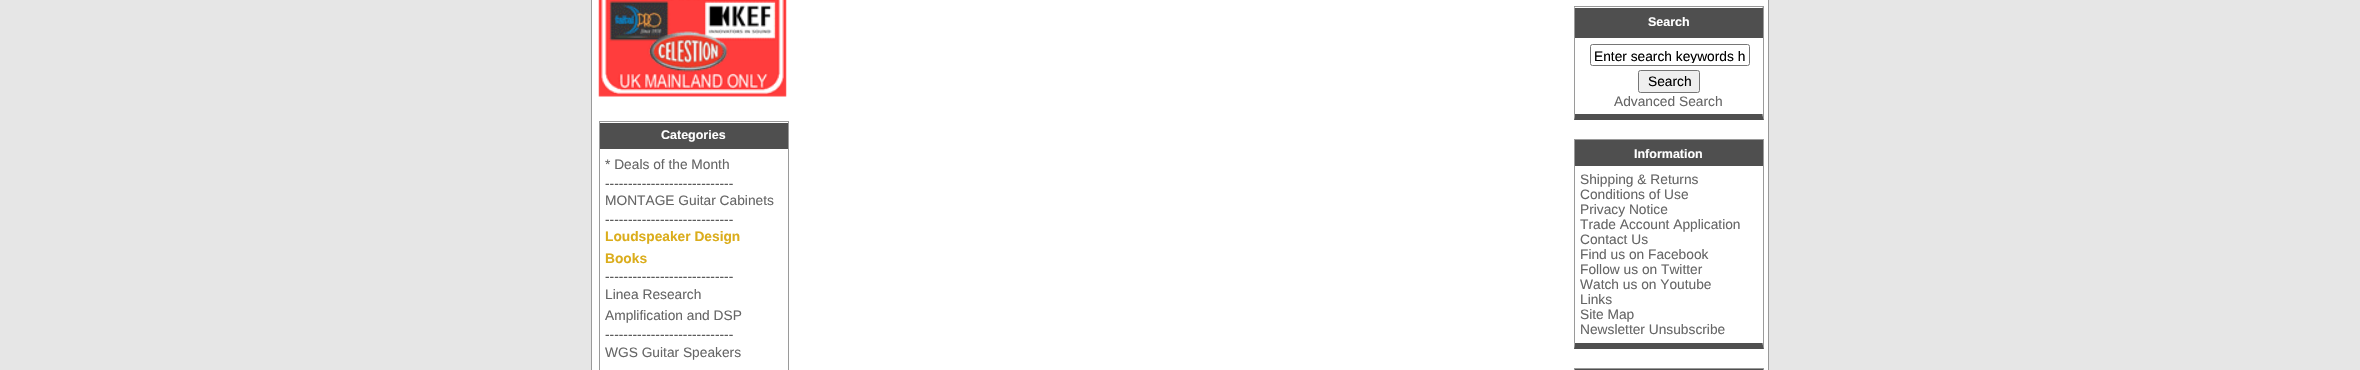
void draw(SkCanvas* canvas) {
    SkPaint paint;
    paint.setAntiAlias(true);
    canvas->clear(0xFFE6E6E6);
    paint.setColor(0xFFFFFFFF);
    canvas->drawRect(SkRect::MakeXYWH(591.5f, -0.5f, 1177, 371), paint);
    paint.setStyle(SkPaint::kStroke_Style);
    paint.setStrokeWidth(1);
    paint.setColor(0xFF9A9A9A);
    canvas->drawRect(SkRect::MakeXYWH(591.5f, -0.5f, 1177, 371), paint);
    canvas->drawImageRect(SkImages::DeferredFromEncodedData(SkData::MakeFromFileName("img1.png")), SkRect::MakeXYWH(598, 0, 189, 97), SkSamplingOptions());
    paint.setStyle(SkPaint::kFill_Style);
    canvas->drawRect(SkRect::MakeXYWH(599, 121, 190, 1), paint);
    canvas->drawPath(SkPathBuilder().moveTo(789, 121).lineTo(789, 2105).lineTo(788, 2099).lineTo(788, 122).close().detach(), paint);
    canvas->drawPath(SkPathBuilder().moveTo(599, 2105).lineTo(599, 121).lineTo(600, 122).lineTo(600, 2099).close().detach(), paint);
    paint.setColor(0xFF4F4F4F);
    canvas->drawRect(SkRect::MakeXYWH(600, 123, 188, 26), paint);
    SkFont font1(fontMgr->matchFamilyStyle("Liberation Sans", SkFontStyle::Bold()), 12.5f);
    font1.setSubpixel(true);
    paint.setColor(0xFFFFFFFF);
    canvas->drawString("Categories", 661, 139, font1, paint);
    SkFont font2(fontMgr->matchFamilyStyle("Liberation Sans", SkFontStyle::Normal()), 13.75f);
    font2.setSubpixel(true);
    paint.setColor(0xFF666666);
    canvas->drawString("* Deals of the Month", 605, 169, font2, paint);
    paint.setColor(0xFF4F4F4F);
    canvas->drawString("----------------------------", 605, 188, font2, paint);
    paint.setColor(0xFF666666);
    canvas->drawString("MONTAGE Guitar Cabinets", 605, 205, font2, paint);
    paint.setColor(0xFF4F4F4F);
    canvas->drawString("----------------------------", 605, 224, font2, paint);
    SkFont font3(fontMgr->matchFamilyStyle("Liberation Sans", SkFontStyle::Bold()), 13.75f);
    font3.setSubpixel(true);
    paint.setColor(0xFFDBAD1C);
    canvas->drawString("Loudspeaker Design", 605, 241, font3, paint);
    canvas->drawString("Books", 605, 263, font3, paint);
    paint.setColor(0xFF4F4F4F);
    canvas->drawString("----------------------------", 605, 281, font2, paint);
    paint.setColor(0xFF666666);
    canvas->drawString("Linea Research", 605, 299, font2, paint);
    canvas->drawString("Amplification and DSP", 605, 320, font2, paint);
    paint.setColor(0xFF4F4F4F);
    canvas->drawString("----------------------------", 605, 339, font2, paint);
    paint.setColor(0xFF666666);
    canvas->drawString("WGS Guitar Speakers", 605, 357, font2, paint);
    paint.setColor(0xFF9A9A9A);
    canvas->drawRect(SkRect::MakeXYWH(1574, 6, 190, 1), paint);
    canvas->drawPath(SkPathBuilder().moveTo(1764, 6).lineTo(1764, 120).lineTo(1762, 114).lineTo(1762, 8).close().detach(), paint);
    paint.setColor(0xFF4F4F4F);
    canvas->drawPath(SkPathBuilder().moveTo(1764, 120).lineTo(1574, 120).lineTo(1575, 114).lineTo(1762, 114).close().detach(), paint);
    paint.setColor(0xFF9A9A9A);
    canvas->drawPath(SkPathBuilder().moveTo(1574, 120).lineTo(1574, 6).lineTo(1575, 8).lineTo(1575, 114).close().detach(), paint);
    paint.setColor(0xFF4F4F4F);
    canvas->drawRect(SkRect::MakeXYWH(1575, 8, 188, 30), paint);
    paint.setColor(0xFFFFFFFF);
    canvas->drawString("Search", 1648, 26, font1, paint);
    canvas->drawRect(SkRect::MakeXYWH(1762, 38, 1, 76), paint);
    paint.setStyle(SkPaint::kStroke_Style);
    paint.setColor(0xFF767676);
    canvas->drawRoundRect(SkRect::MakeXYWH(1590.5f, 44.5f, 159, 21), 2, 2, paint);
    canvas->save();
    canvas->clipRect(SkRect::MakeXYWH(1595, 48, 150, 15));
    paint.setStyle(SkPaint::kFill_Style);
    paint.setColor(0xFF000000);
    canvas->drawString("Enter search keywords h", 1594, 61, font2, paint);
    canvas->restore();
    paint.setColor(0xFFEFEFEF);
    canvas->drawRoundRect(SkRect::MakeXYWH(1638.5f, 70.5f, 61, 22), 2, 2, paint);
    paint.setStyle(SkPaint::kStroke_Style);
    paint.setColor(0xFF767676);
    canvas->drawRoundRect(SkRect::MakeXYWH(1638.5f, 70.5f, 61, 22), 2, 2, paint);
    paint.setStyle(SkPaint::kFill_Style);
    paint.setColor(0xFF000000);
    canvas->drawString("Search", 1648, 86, font2, paint);
    paint.setColor(0xFF666666);
    canvas->drawString("Advanced Search", 1614, 106, font2, paint);
    paint.setColor(0xFF9A9A9A);
    canvas->drawRect(SkRect::MakeXYWH(1574, 139, 190, 1), paint);
    canvas->drawPath(SkPathBuilder().moveTo(1764, 139).lineTo(1764, 349).lineTo(1762, 342).lineTo(1762, 140).close().detach(), paint);
    paint.setColor(0xFF4F4F4F);
    canvas->drawPath(SkPathBuilder().moveTo(1764, 349).lineTo(1574, 349).lineTo(1575, 342).lineTo(1762, 342).close().detach(), paint);
    paint.setColor(0xFF9A9A9A);
    canvas->drawPath(SkPathBuilder().moveTo(1574, 349).lineTo(1574, 139).lineTo(1575, 140).lineTo(1575, 342).close().detach(), paint);
    paint.setColor(0xFF4F4F4F);
    canvas->drawRect(SkRect::MakeXYWH(1575, 140, 188, 26), paint);
    paint.setColor(0xFFFFFFFF);
    canvas->drawString("Information", 1634, 158, font1, paint);
    canvas->drawRect(SkRect::MakeXYWH(1575, 166, 188, 177), paint);
    paint.setColor(0xFF666666);
    canvas->drawString("Shipping & Returns", 1580, 184, font2, paint);
    canvas->drawString("Conditions of Use", 1580, 199, font2, paint);
    canvas->drawString("Privacy Notice", 1580, 214, font2, paint);
    canvas->drawString("Trade Account Application", 1580, 229, font2, paint);
    canvas->drawString("Contact Us", 1580, 244, font2, paint);
    canvas->drawString("Find us on Facebook", 1580, 259, font2, paint);
    canvas->drawString("Follow us on Twitter", 1580, 274, font2, paint);
    canvas->drawString("Watch us on Youtube", 1580, 289, font2, paint);
    canvas->drawString("Links", 1580, 304, font2, paint);
    canvas->drawString("Site Map", 1580, 319, font2, paint);
    canvas->drawString("Newsletter Unsubscribe", 1580, 334, font2, paint);
    paint.setColor(0xFF9A9A9A);
    canvas->drawRect(SkRect::MakeXYWH(1574, 368, 190, 1), paint);
    canvas->drawPath(SkPathBuilder().moveTo(1764, 368).lineTo(1764, 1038).lineTo(1762, 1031).lineTo(1762, 369).close().detach(), paint);
    canvas->drawPath(SkPathBuilder().moveTo(1574, 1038).lineTo(1574, 368).lineTo(1575, 369).lineTo(1575, 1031).close().detach(), paint);
    paint.setColor(0xFF4F4F4F);
    canvas->drawRect(SkRect::MakeXYWH(1575, 369, 188, 1), paint);
}
